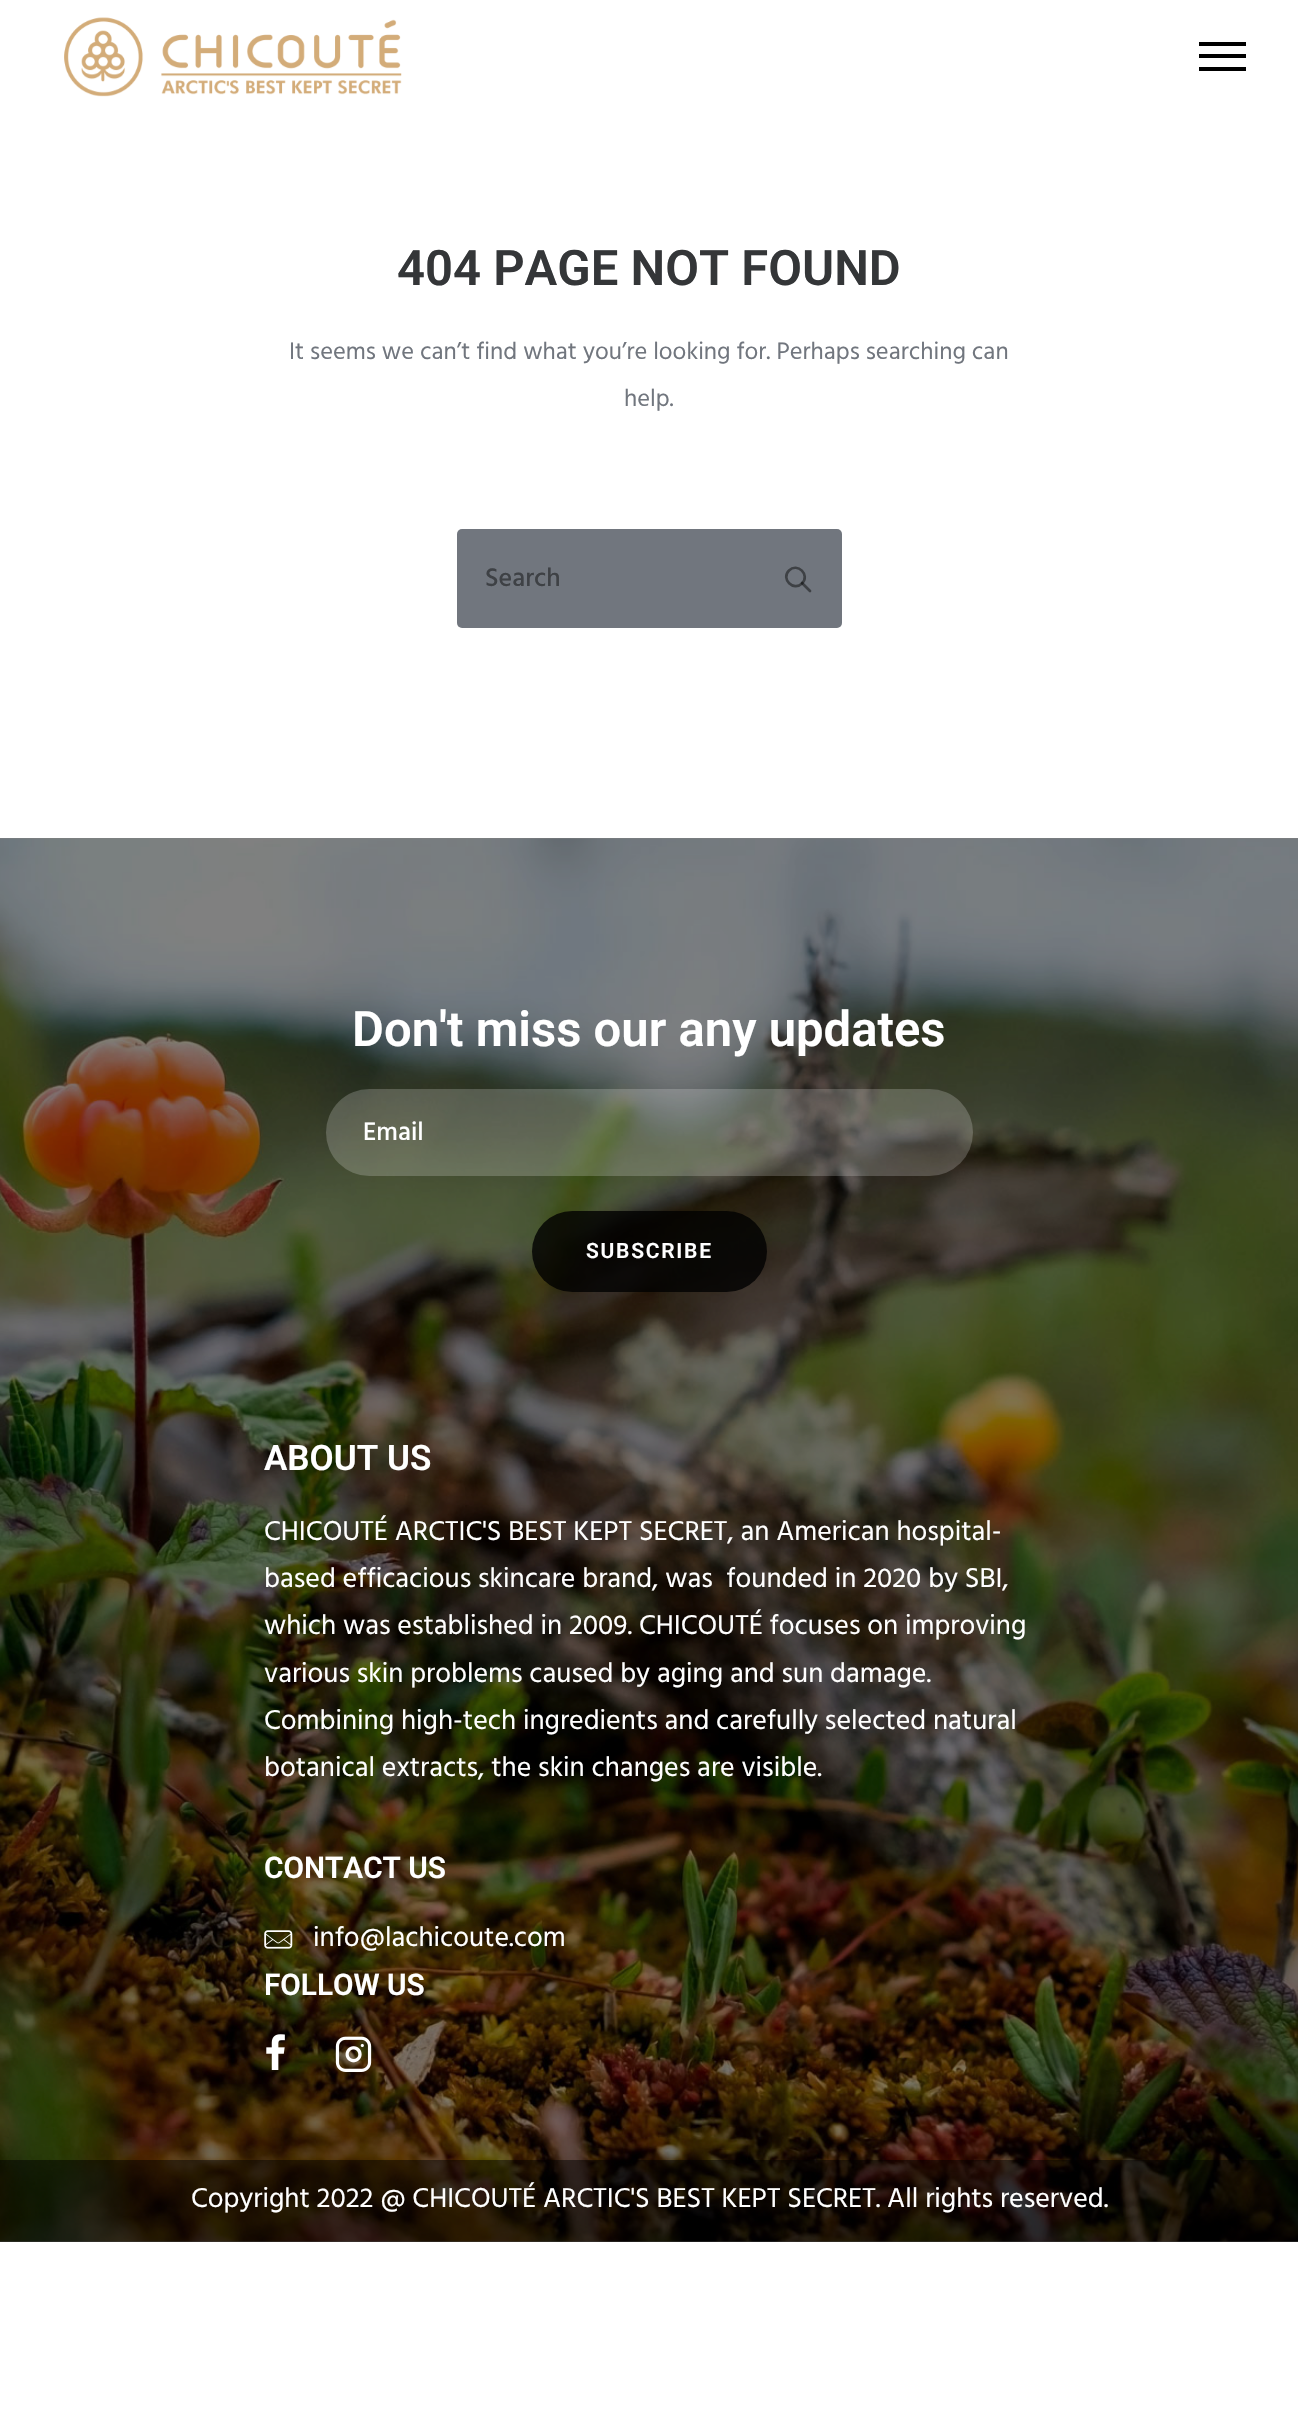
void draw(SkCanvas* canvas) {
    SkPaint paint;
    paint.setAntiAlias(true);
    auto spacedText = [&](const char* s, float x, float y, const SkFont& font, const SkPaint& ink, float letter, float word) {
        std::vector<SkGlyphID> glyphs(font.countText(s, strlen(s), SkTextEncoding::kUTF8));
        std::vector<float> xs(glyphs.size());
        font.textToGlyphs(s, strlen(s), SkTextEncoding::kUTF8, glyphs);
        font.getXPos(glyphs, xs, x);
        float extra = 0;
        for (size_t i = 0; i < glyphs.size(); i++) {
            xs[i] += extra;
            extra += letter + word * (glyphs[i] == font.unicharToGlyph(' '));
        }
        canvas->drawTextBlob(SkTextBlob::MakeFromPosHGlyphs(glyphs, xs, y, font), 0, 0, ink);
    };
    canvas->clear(0xFFFFFFFF);
    paint.setColor(0xFF808080);
    canvas->drawRect(SkRect::MakeXYWH(0, 838, 1298, 1404), paint);
    canvas->drawImageRect(SkImages::DeferredFromEncodedData(SkData::MakeFromFileName("img1.png")), SkRect::MakeXYWH(64, 17, 338, 80), SkSamplingOptions());
    paint.setColor(0xFF000000);
    canvas->drawRect(SkRect::MakeXYWH(1199, 42, 47, 4), paint);
    canvas->drawRect(SkRect::MakeXYWH(1199, 54, 47, 4), paint);
    canvas->drawRect(SkRect::MakeXYWH(1199, 67, 47, 4), paint);
    SkFont font1(fontMgr->matchFamilyStyle("Roboto", SkFontStyle(600, SkFontStyle::kNormal_Width, SkFontStyle::kUpright_Slant)), 49);
    font1.setSubpixel(true);
    paint.setColor(0xFF343638);
    canvas->drawString("404 PAGE NOT FOUND", 397, 285, font1, paint);
    SkFont font2(fontMgr->matchFamilyStyle("Hind", SkFontStyle::Normal()), 24.5f);
    font2.setSubpixel(true);
    paint.setColor(0xFF71767E);
    canvas->drawString("It seems we can’t find what you’re looking for. Perhaps searching can", 289, 359, font2, paint);
    canvas->drawString("help.", 624, 406, font2, paint);
    canvas->drawRoundRect(SkRect::MakeXYWH(457, 529, 385, 99), 5, 5, paint);
    SkFont font3(fontMgr->matchFamilyStyle("Hind", SkFontStyle(500, SkFontStyle::kNormal_Width, SkFontStyle::kUpright_Slant)), 26);
    font3.setSubpixel(true);
    paint.setColor(0xFF3E4145);
    canvas->drawString("Search", 485, 586, font3, paint);
    paint.setStyle(SkPaint::kStroke_Style);
    paint.setStrokeWidth(2.7f);
    canvas->drawPath(SkPathBuilder().moveTo(789, 570.5f).cubicTo(797.5f, 562, 810.5f, 575, 802, 583.5f).cubicTo(793.5f, 591.5f, 780.5f, 579, 789, 570.5f).close().detach(), paint);
    paint.setStrokeCap(SkPaint::kRound_Cap);
    paint.setColor(0x73000000);
    canvas->drawPath(SkPathBuilder().moveTo(802, 583).lineTo(810, 591).detach(), paint);
    canvas->drawImageRect(SkImages::DeferredFromEncodedData(SkData::MakeFromFileName("img2.png")), SkRect::MakeXYWH(0, 838, 1298, 1404), SkSamplingOptions());
    paint.setStyle(SkPaint::kFill_Style);
    paint.setColor(0xFFFFFFFF);
    canvas->drawString("Don't miss our any updates", 352, 1046, font1, paint);
    paint.setColor(0x33FFFFFF);
    canvas->drawRoundRect(SkRect::MakeXYWH(326, 1089, 647, 87), 43.5f, 43.5f, paint);
    paint.setColor(0xFFFFFFFF);
    canvas->drawString("Email", 363, 1140, font3, paint);
    paint.setColor(0xCC000000);
    canvas->drawRoundRect(SkRect::MakeXYWH(532, 1211, 235, 81), 40.5f, 40.5f, paint);
    SkFont font4(fontMgr->matchFamilyStyle("Roboto", SkFontStyle(600, SkFontStyle::kNormal_Width, SkFontStyle::kUpright_Slant)), 21);
    font4.setSubpixel(true);
    paint.setColor(0xFFFFFFFF);
    spacedText("SUBSCRIBE", 586, 1258, font4, paint, 1.75f, 0);
    SkFont font5(fontMgr->matchFamilyStyle("Roboto", SkFontStyle(600, SkFontStyle::kNormal_Width, SkFontStyle::kUpright_Slant)), 35);
    font5.setSubpixel(true);
    canvas->drawString("ABOUT US", 264, 1470, font5, paint);
    SkFont font6(fontMgr->matchFamilyStyle("Hind", SkFontStyle::Normal()), 28);
    font6.setSubpixel(true);
    canvas->drawString("CHICOUTÉ ARCTIC'S BEST KEPT SECRET, an American hospital-", 264, 1540, font6, paint);
    canvas->drawString("based efficacious skincare brand, was  founded in 2020 by SBI,", 264, 1587, font6, paint);
    canvas->drawString("which was established in 2009. CHICOUTÉ focuses on improving", 264, 1634, font6, paint);
    canvas->drawString("various skin problems caused by aging and sun damage.", 264, 1682, font6, paint);
    canvas->drawString("Combining high-tech ingredients and carefully selected natural", 264, 1729, font6, paint);
    canvas->drawString("botanical extracts, the skin changes are visible.", 264, 1776, font6, paint);
    SkFont font7(fontMgr->matchFamilyStyle("Roboto", SkFontStyle(600, SkFontStyle::kNormal_Width, SkFontStyle::kUpright_Slant)), 29.75f);
    font7.setSubpixel(true);
    canvas->drawString("CONTACT US", 264, 1878, font7, paint);
    canvas->drawImageRect(SkImages::DeferredFromEncodedData(SkData::MakeFromFileName("img3.png")), SkRect::MakeXYWH(264, 1930, 29, 19), SkSamplingOptions());
    canvas->drawString("info@lachicoute.com", 313, 1946, font6, paint);
    canvas->drawString("FOLLOW US", 264, 1995, font7, paint);
    canvas->drawImageRect(SkImages::DeferredFromEncodedData(SkData::MakeFromFileName("img4.png")), SkRect::MakeXYWH(266, 2034, 19, 36), SkSamplingOptions());
    canvas->drawImageRect(SkImages::DeferredFromEncodedData(SkData::MakeFromFileName("img5.png")), SkRect::MakeXYWH(335, 2036, 37, 36), SkSamplingOptions());
    paint.setColor(0x80000000);
    canvas->drawRect(SkRect::MakeXYWH(0, 2160, 1298, 82), paint);
    paint.setColor(0xFFFFFFFF);
    canvas->drawString("Copyright 2022 @ CHICOUTÉ ARCTIC'S BEST KEPT SECRET. All rights reserved.", 191, 2207, font6, paint);
}
